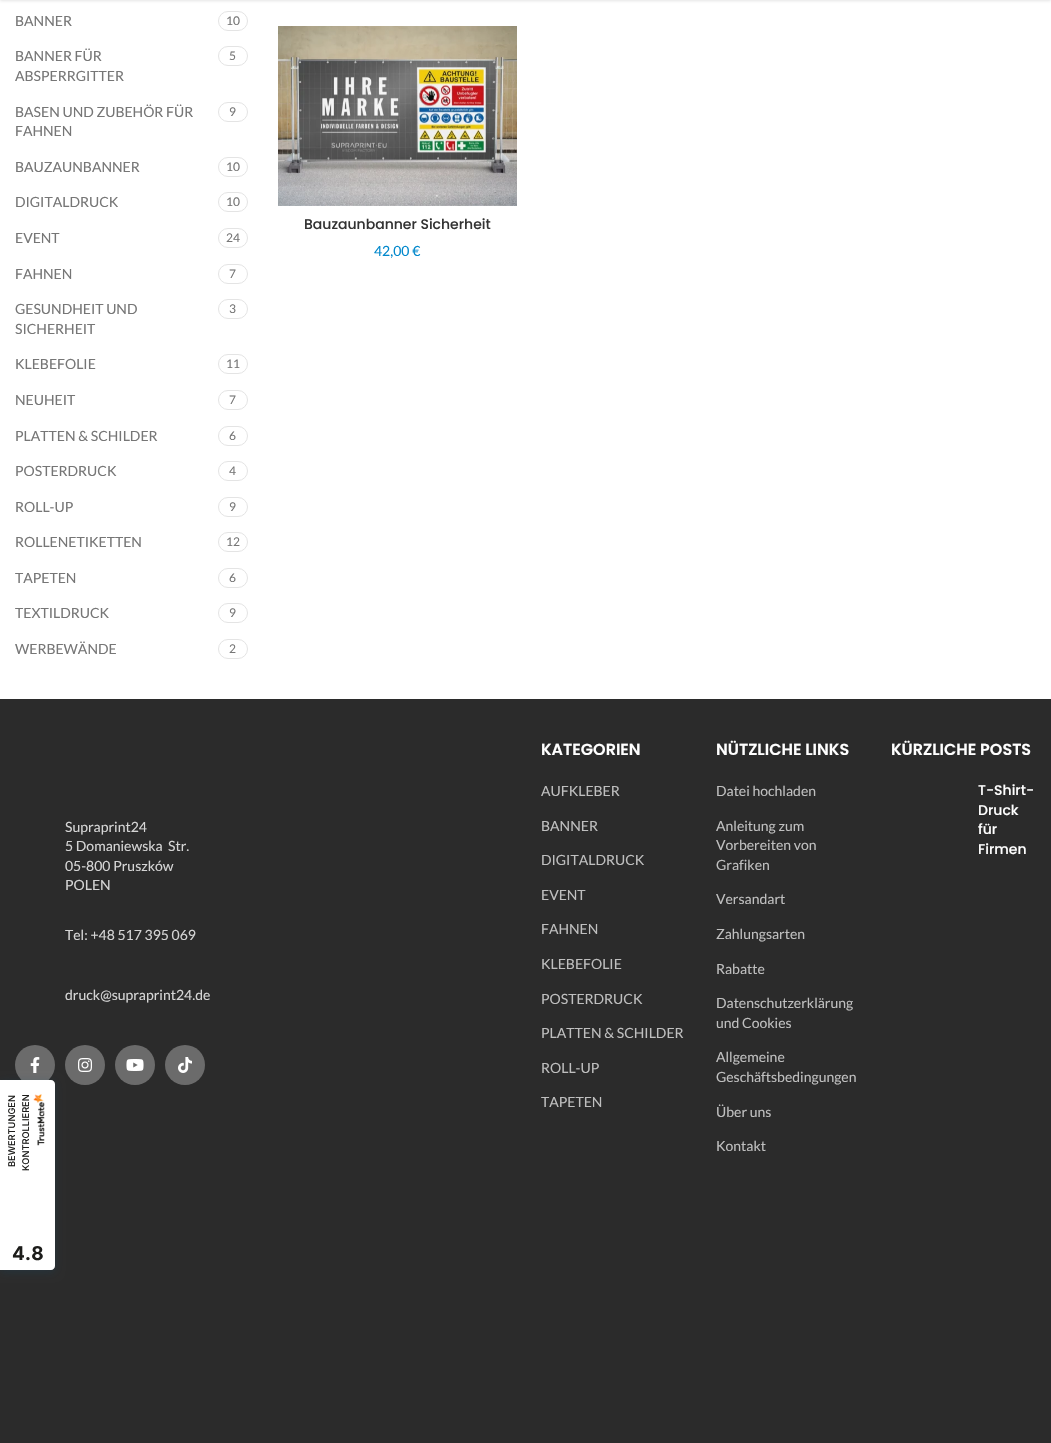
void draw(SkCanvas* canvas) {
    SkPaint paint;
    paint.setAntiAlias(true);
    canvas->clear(0xFFFFFFFF);
    paint.setColor(0x1A000000);
    paint.setMaskFilter(SkMaskFilter::MakeBlur(kNormal_SkBlurStyle, 1.5f));
    canvas->drawRect(SkRect::MakeXYWH(0, -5, 1051, 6), paint);
    paint.setMaskFilter(nullptr);
    SkFont font1(fontMgr->matchFamilyStyle("Lato", SkFontStyle::Normal()), 14);
    font1.setSubpixel(true);
    paint.setColor(0xFF767676);
    canvas->drawString("BANNER", 15, 26, font1, paint);
    paint.setStyle(SkPaint::kStroke_Style);
    paint.setStrokeWidth(1);
    paint.setColor(0xFFE4E4E4);
    canvas->drawRoundRect(SkRect::MakeXYWH(218.5f, 11.5f, 29, 19), 9.5f, 9.5f, paint);
    SkFont font2(fontMgr->matchFamilyStyle("Lato", SkFontStyle::Normal()), 12);
    font2.setSubpixel(true);
    paint.setStyle(SkPaint::kFill_Style);
    paint.setColor(0xFF767676);
    canvas->drawString("10", 226, 25, font2, paint);
    canvas->drawString("BANNER FÜR", 15, 61, font1, paint);
    canvas->drawString("ABSPERRGITTER", 15, 81, font1, paint);
    paint.setStyle(SkPaint::kStroke_Style);
    paint.setColor(0xFFE4E4E4);
    canvas->drawRoundRect(SkRect::MakeXYWH(218.5f, 46.5f, 29, 19), 9.5f, 9.5f, paint);
    paint.setStyle(SkPaint::kFill_Style);
    paint.setColor(0xFF767676);
    canvas->drawString("5", 229, 60, font2, paint);
    canvas->drawString("BASEN UND ZUBEHÖR FÜR", 15, 117, font1, paint);
    canvas->drawString("FAHNEN", 15, 136, font1, paint);
    paint.setStyle(SkPaint::kStroke_Style);
    paint.setColor(0xFFE4E4E4);
    canvas->drawRoundRect(SkRect::MakeXYWH(218.5f, 102.5f, 29, 19), 9.5f, 9.5f, paint);
    paint.setStyle(SkPaint::kFill_Style);
    paint.setColor(0xFF767676);
    canvas->drawString("9", 229, 116, font2, paint);
    canvas->drawString("BAUZAUNBANNER", 15, 172, font1, paint);
    paint.setStyle(SkPaint::kStroke_Style);
    paint.setColor(0xFFE4E4E4);
    canvas->drawRoundRect(SkRect::MakeXYWH(218.5f, 157.5f, 29, 19), 9.5f, 9.5f, paint);
    paint.setStyle(SkPaint::kFill_Style);
    paint.setColor(0xFF767676);
    canvas->drawString("10", 226, 171, font2, paint);
    canvas->drawString("DIGITALDRUCK", 15, 207, font1, paint);
    paint.setStyle(SkPaint::kStroke_Style);
    paint.setColor(0xFFE4E4E4);
    canvas->drawRoundRect(SkRect::MakeXYWH(218.5f, 192.5f, 29, 19), 9.5f, 9.5f, paint);
    paint.setStyle(SkPaint::kFill_Style);
    paint.setColor(0xFF767676);
    canvas->drawString("10", 226, 206, font2, paint);
    canvas->drawString("EVENT", 15, 243, font1, paint);
    paint.setStyle(SkPaint::kStroke_Style);
    paint.setColor(0xFFE4E4E4);
    canvas->drawRoundRect(SkRect::MakeXYWH(218.5f, 228.5f, 29, 19), 9.5f, 9.5f, paint);
    paint.setStyle(SkPaint::kFill_Style);
    paint.setColor(0xFF767676);
    canvas->drawString("24", 226, 242, font2, paint);
    canvas->drawString("FAHNEN", 15, 279, font1, paint);
    paint.setStyle(SkPaint::kStroke_Style);
    paint.setColor(0xFFE4E4E4);
    canvas->drawRoundRect(SkRect::MakeXYWH(218.5f, 264.5f, 29, 19), 9.5f, 9.5f, paint);
    paint.setStyle(SkPaint::kFill_Style);
    paint.setColor(0xFF767676);
    canvas->drawString("7", 229, 278, font2, paint);
    canvas->drawString("GESUNDHEIT UND", 15, 314, font1, paint);
    canvas->drawString("SICHERHEIT", 15, 334, font1, paint);
    paint.setStyle(SkPaint::kStroke_Style);
    paint.setColor(0xFFE4E4E4);
    canvas->drawRoundRect(SkRect::MakeXYWH(218.5f, 299.5f, 29, 19), 9.5f, 9.5f, paint);
    paint.setStyle(SkPaint::kFill_Style);
    paint.setColor(0xFF767676);
    canvas->drawString("3", 229, 313, font2, paint);
    canvas->drawString("KLEBEFOLIE", 15, 369, font1, paint);
    paint.setStyle(SkPaint::kStroke_Style);
    paint.setColor(0xFFE4E4E4);
    canvas->drawRoundRect(SkRect::MakeXYWH(218.5f, 354.5f, 29, 19), 9.5f, 9.5f, paint);
    paint.setStyle(SkPaint::kFill_Style);
    paint.setColor(0xFF767676);
    canvas->drawString("11", 226, 368, font2, paint);
    canvas->drawString("NEUHEIT", 15, 405, font1, paint);
    paint.setStyle(SkPaint::kStroke_Style);
    paint.setColor(0xFFE4E4E4);
    canvas->drawRoundRect(SkRect::MakeXYWH(218.5f, 390.5f, 29, 19), 9.5f, 9.5f, paint);
    paint.setStyle(SkPaint::kFill_Style);
    paint.setColor(0xFF767676);
    canvas->drawString("7", 229, 404, font2, paint);
    canvas->drawString("PLATTEN & SCHILDER", 15, 441, font1, paint);
    paint.setStyle(SkPaint::kStroke_Style);
    paint.setColor(0xFFE4E4E4);
    canvas->drawRoundRect(SkRect::MakeXYWH(218.5f, 426.5f, 29, 19), 9.5f, 9.5f, paint);
    paint.setStyle(SkPaint::kFill_Style);
    paint.setColor(0xFF767676);
    canvas->drawString("6", 229, 440, font2, paint);
    canvas->drawString("POSTERDRUCK", 15, 476, font1, paint);
    paint.setStyle(SkPaint::kStroke_Style);
    paint.setColor(0xFFE4E4E4);
    canvas->drawRoundRect(SkRect::MakeXYWH(218.5f, 461.5f, 29, 19), 9.5f, 9.5f, paint);
    paint.setStyle(SkPaint::kFill_Style);
    paint.setColor(0xFF767676);
    canvas->drawString("4", 229, 475, font2, paint);
    canvas->drawString("ROLL-UP", 15, 512, font1, paint);
    paint.setStyle(SkPaint::kStroke_Style);
    paint.setColor(0xFFE4E4E4);
    canvas->drawRoundRect(SkRect::MakeXYWH(218.5f, 497.5f, 29, 19), 9.5f, 9.5f, paint);
    paint.setStyle(SkPaint::kFill_Style);
    paint.setColor(0xFF767676);
    canvas->drawString("9", 229, 511, font2, paint);
    canvas->drawString("ROLLENETIKETTEN", 15, 547, font1, paint);
    paint.setStyle(SkPaint::kStroke_Style);
    paint.setColor(0xFFE4E4E4);
    canvas->drawRoundRect(SkRect::MakeXYWH(218.5f, 532.5f, 29, 19), 9.5f, 9.5f, paint);
    paint.setStyle(SkPaint::kFill_Style);
    paint.setColor(0xFF767676);
    canvas->drawString("12", 226, 546, font2, paint);
    canvas->drawString("TAPETEN", 15, 583, font1, paint);
    paint.setStyle(SkPaint::kStroke_Style);
    paint.setColor(0xFFE4E4E4);
    canvas->drawRoundRect(SkRect::MakeXYWH(218.5f, 568.5f, 29, 19), 9.5f, 9.5f, paint);
    paint.setStyle(SkPaint::kFill_Style);
    paint.setColor(0xFF767676);
    canvas->drawString("6", 229, 582, font2, paint);
    canvas->drawString("TEXTILDRUCK", 15, 618, font1, paint);
    paint.setStyle(SkPaint::kStroke_Style);
    paint.setColor(0xFFE4E4E4);
    canvas->drawRoundRect(SkRect::MakeXYWH(218.5f, 603.5f, 29, 19), 9.5f, 9.5f, paint);
    paint.setStyle(SkPaint::kFill_Style);
    paint.setColor(0xFF767676);
    canvas->drawString("9", 229, 617, font2, paint);
    canvas->drawString("WERBEWÄNDE", 15, 654, font1, paint);
    paint.setStyle(SkPaint::kStroke_Style);
    paint.setColor(0xFFE4E4E4);
    canvas->drawRoundRect(SkRect::MakeXYWH(218.5f, 639.5f, 29, 19), 9.5f, 9.5f, paint);
    paint.setStyle(SkPaint::kFill_Style);
    paint.setColor(0xFF767676);
    canvas->drawString("2", 229, 653, font2, paint);
    canvas->drawImageRect(SkImages::DeferredFromEncodedData(SkData::MakeFromFileName("img1.png")), SkRect::MakeXYWH(278, 26, 239, 180), SkSamplingOptions());
    SkFont font3(fontMgr->matchFamilyStyle("Poppins", SkFontStyle(500, SkFontStyle::kNormal_Width, SkFontStyle::kUpright_Slant)), 14);
    font3.setSubpixel(true);
    paint.setColor(0xFF333333);
    canvas->drawString("Bauzaunbanner Sicherheit", 304, 229, font3, paint);
    paint.setColor(0xFF0188CC);
    canvas->drawString("42,00 €", 374, 256, font1, paint);
    paint.setColor(0xFF2B2B2B);
    canvas->drawRect(SkRect::MakeXYWH(0, 699, 1051, 744), paint);
    paint.setColor(0xFFD5D5D5);
    canvas->drawString("Supraprint24", 65, 832, font1, paint);
    canvas->drawString("5 Domaniewska  Str.", 65, 851, font1, paint);
    canvas->drawString("05-800 Pruszków", 65, 871, font1, paint);
    canvas->drawString("POLEN", 65, 890, font1, paint);
    canvas->drawString("Tel: +48 517 395 069", 65, 940, font1, paint);
    canvas->drawString("druck@supraprint24.de", 65, 1000, font1, paint);
    paint.setColor(0xFF6B6B6B);
    canvas->drawCircle(35, 1065, 20, paint);
    canvas->drawImageRect(SkImages::DeferredFromEncodedData(SkData::MakeFromFileName("img2.png")), SkRect::MakeXYWH(30, 1057, 10, 16), SkSamplingOptions());
    canvas->drawCircle(85, 1065, 20, paint);
    canvas->drawImageRect(SkImages::DeferredFromEncodedData(SkData::MakeFromFileName("img3.png")), SkRect::MakeXYWH(78, 1058, 14, 14), SkSamplingOptions());
    canvas->drawCircle(135, 1065, 20, paint);
    canvas->drawImageRect(SkImages::DeferredFromEncodedData(SkData::MakeFromFileName("img4.png")), SkRect::MakeXYWH(126, 1059, 18, 12), SkSamplingOptions());
    canvas->drawCircle(185, 1065, 20, paint);
    canvas->drawImageRect(SkImages::DeferredFromEncodedData(SkData::MakeFromFileName("img5.png")), SkRect::MakeXYWH(178, 1057, 14, 16), SkSamplingOptions());
    SkFont font4(fontMgr->matchFamilyStyle("Poppins", SkFontStyle(600, SkFontStyle::kNormal_Width, SkFontStyle::kUpright_Slant)), 16);
    font4.setSubpixel(true);
    paint.setColor(0xFFFFFFFF);
    canvas->drawString("KATEGORIEN", 541, 755, font4, paint);
    paint.setColor(0xFFBFBFBF);
    canvas->drawString("AUFKLEBER", 541, 796, font1, paint);
    canvas->drawString("BANNER", 541, 831, font1, paint);
    canvas->drawString("DIGITALDRUCK", 541, 865, font1, paint);
    canvas->drawString("EVENT", 541, 900, font1, paint);
    canvas->drawString("FAHNEN", 541, 934, font1, paint);
    canvas->drawString("KLEBEFOLIE", 541, 969, font1, paint);
    canvas->drawString("POSTERDRUCK", 541, 1004, font1, paint);
    canvas->drawString("PLATTEN & SCHILDER", 541, 1038, font1, paint);
    canvas->drawString("ROLL-UP", 541, 1073, font1, paint);
    canvas->drawString("TAPETEN", 541, 1107, font1, paint);
    paint.setColor(0xFFFFFFFF);
    canvas->drawString("NÜTZLICHE LINKS", 716, 755, font4, paint);
    paint.setColor(0xFFBFBFBF);
    canvas->drawString("Datei hochladen", 716, 796, font1, paint);
    canvas->drawString("Anleitung zum", 716, 831, font1, paint);
    canvas->drawString("Vorbereiten von", 716, 850, font1, paint);
    canvas->drawString("Grafiken", 716, 870, font1, paint);
    canvas->drawString("Versandart", 716, 904, font1, paint);
    canvas->drawString("Zahlungsarten", 716, 939, font1, paint);
    canvas->drawString("Rabatte", 716, 974, font1, paint);
    canvas->drawString("Datenschutzerklärung", 716, 1008, font1, paint);
    canvas->drawString("und Cookies", 716, 1028, font1, paint);
    canvas->drawString("Allgemeine", 716, 1062, font1, paint);
    canvas->drawString("Geschäftsbedingungen", 716, 1082, font1, paint);
    canvas->drawString("Über uns", 716, 1117, font1, paint);
    canvas->drawString("Kontakt", 716, 1151, font1, paint);
    paint.setColor(0xFFFFFFFF);
    canvas->drawString("KÜRZLICHE POSTS", 891, 755, font4, paint);
    canvas->drawString("T-Shirt-", 978, 795, font3, paint);
    canvas->drawString("Druck", 978, 815, font3, paint);
    canvas->drawString("für", 978, 834, font3, paint);
    canvas->drawString("Firmen", 978, 854, font3, paint);
    paint.setColor(0x330B5680);
    paint.setMaskFilter(SkMaskFilter::MakeBlur(kNormal_SkBlurStyle, 5));
    canvas->drawRoundRect(SkRect::MakeXYWH(0, 1082, 55, 190), 4, 4, paint);
    paint.setMaskFilter(nullptr);
    paint.setColor(0xFFFFFFFF);
    canvas->drawPath(SkPathBuilder().moveTo(0, 1080).lineTo(51, 1080).cubicTo(53, 1080, 55, 1082, 55, 1084).lineTo(55, 1266).cubicTo(55, 1268, 53, 1270, 51, 1270).lineTo(0, 1270).close().detach(), paint);
    SkFont font5(fontMgr->matchFamilyStyle("Inter", SkFontStyle(500, SkFontStyle::kNormal_Width, SkFontStyle::kUpright_Slant)), 9.25f);
    font5.setSubpixel(true);
    paint.setColor(0xFF1D1D1B);
    canvas->save();
    canvas->rotate(-90, 15, 1167);
    canvas->drawString("BEWERTUNGEN", 15, 1167, font5, paint);
    canvas->restore();
    canvas->save();
    canvas->rotate(-90, 29, 1171);
    canvas->drawString("KONTROLLIEREN", 29, 1171, font5, paint);
    canvas->restore();
    canvas->drawImageRect(SkImages::DeferredFromEncodedData(SkData::MakeFromFileName("img6.png")), SkRect::MakeXYWH(33, 1094, 12, 52), SkSamplingOptions());
    SkFont font6(fontMgr->matchFamilyStyle("Inter", SkFontStyle::Bold()), 19);
    font6.setSubpixel(true);
    canvas->drawString("4.8", 12, 1260, font6, paint);
}
